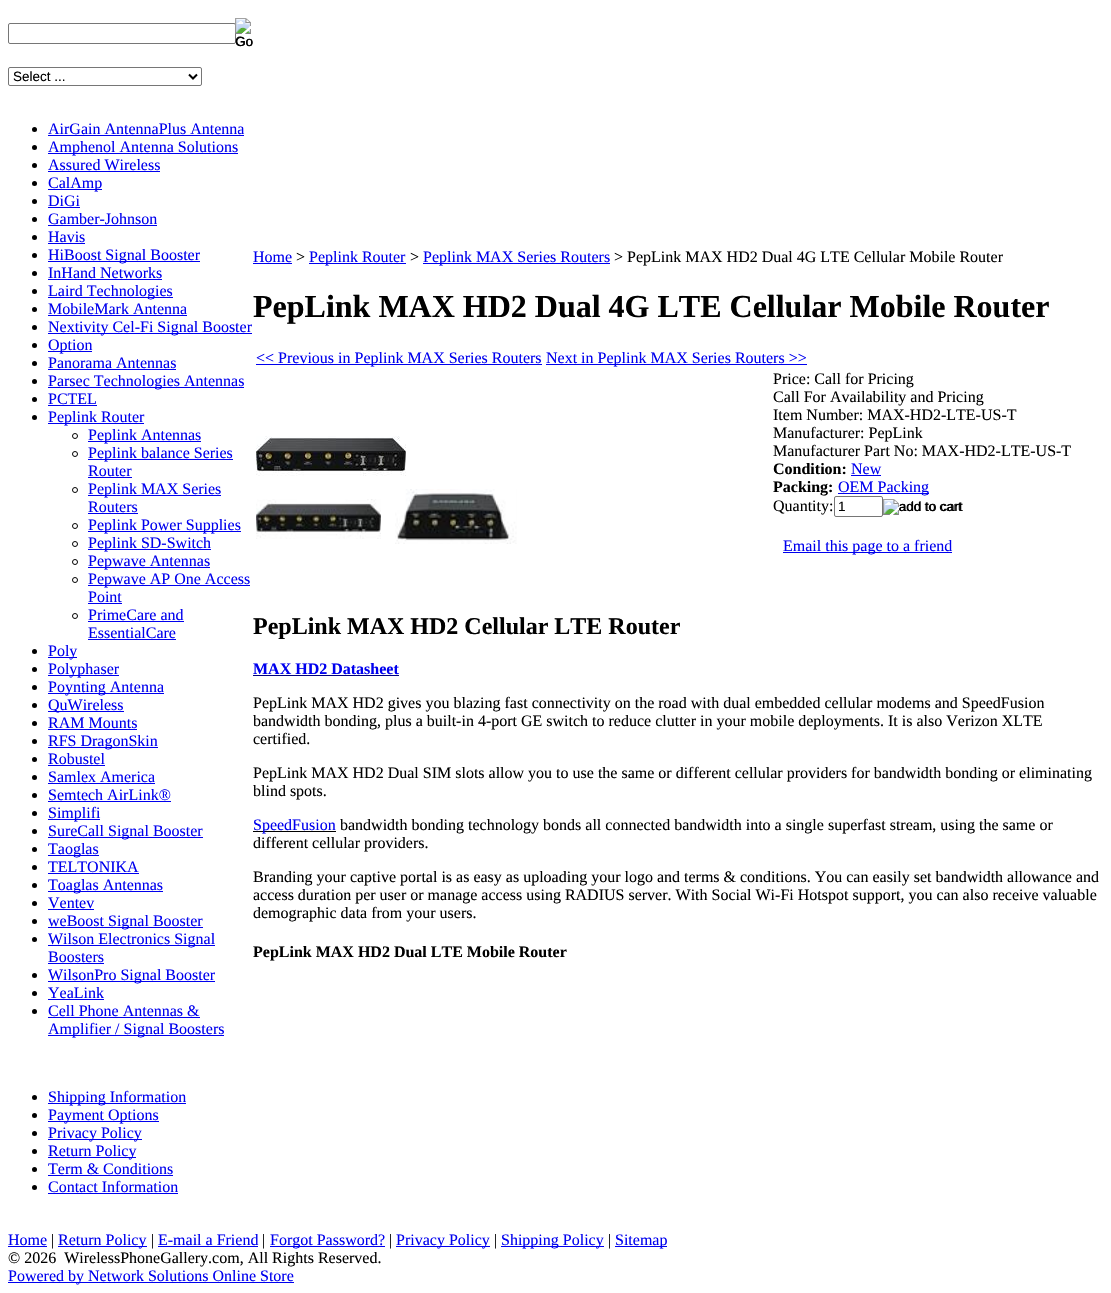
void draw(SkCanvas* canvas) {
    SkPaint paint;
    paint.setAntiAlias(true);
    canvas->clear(0xFFFFFFFF);
    paint.setStyle(SkPaint::kStroke_Style);
    paint.setStrokeWidth(1);
    paint.setColor(0xFF767676);
    canvas->drawRoundRect(SkRect::MakeXYWH(8.5f, 23.5f, 227, 20), 1.5f, 1.5f, paint);
    canvas->drawImageRect(SkImages::DeferredFromEncodedData(SkData::MakeFromFileName("img1.png")), SkRect::MakeXYWH(235, 18, 18, 28), SkSamplingOptions());
    SkFont font1(fontMgr->matchFamilyStyle("Liberation Sans", SkFontStyle::Normal()), 13.5f);
    font1.setSubpixel(true);
    paint.setStyle(SkPaint::kFill_Style);
    paint.setColor(0xFF000000);
    canvas->drawString("Go", 235, 46, font1, paint);
    paint.setStyle(SkPaint::kStroke_Style);
    paint.setColor(0xFF767676);
    canvas->drawRoundRect(SkRect::MakeXYWH(8.5f, 67.5f, 193, 18), 1.5f, 1.5f, paint);
    paint.setStrokeWidth(2);
    paint.setColor(0xFF000000);
    canvas->drawPath(SkPathBuilder().moveTo(189, 74.5f).lineTo(193, 78.5f).lineTo(197, 74.5f).detach(), paint);
    paint.setStyle(SkPaint::kFill_Style);
    canvas->drawString("Select ...", 13, 81, font1, paint);
    canvas->drawCircle(34.5f, 129.5f, 2.5f, paint);
    SkFont font2(fontMgr->matchFamilyStyle("Liberation Serif", SkFontStyle::Normal()), 16);
    font2.setSubpixel(true);
    paint.setColor(0xFF0000EE);
    canvas->drawString("AirGain AntennaPlus Antenna", 48, 134, font2, paint);
    canvas->drawRect(SkRect::MakeXYWH(48, 135, 196, 1), paint);
    paint.setColor(0xFF000000);
    canvas->drawCircle(34.5f, 147.5f, 2.5f, paint);
    paint.setColor(0xFF0000EE);
    canvas->drawRect(SkRect::MakeXYWH(48, 153, 190, 1), paint);
    canvas->drawString("Amphenol Antenna Solutions", 48, 152, font2, paint);
    paint.setColor(0xFF000000);
    canvas->drawCircle(34.5f, 165.5f, 2.5f, paint);
    paint.setColor(0xFF0000EE);
    canvas->drawString("Assured Wireless", 48, 170, font2, paint);
    canvas->drawRect(SkRect::MakeXYWH(48, 171, 112, 1), paint);
    paint.setColor(0xFF000000);
    canvas->drawCircle(34.5f, 183.5f, 2.5f, paint);
    paint.setColor(0xFF0000EE);
    canvas->drawRect(SkRect::MakeXYWH(48, 189, 54, 1), paint);
    canvas->drawString("CalAmp", 48, 188, font2, paint);
    paint.setColor(0xFF000000);
    canvas->drawCircle(34.5f, 201.5f, 2.5f, paint);
    paint.setColor(0xFF0000EE);
    canvas->drawString("DiGi", 48, 206, font2, paint);
    canvas->drawRect(SkRect::MakeXYWH(48, 207, 32, 1), paint);
    paint.setColor(0xFF000000);
    canvas->drawCircle(34.5f, 219.5f, 2.5f, paint);
    paint.setColor(0xFF0000EE);
    canvas->drawString("Gamber-Johnson", 48, 224, font2, paint);
    canvas->drawRect(SkRect::MakeXYWH(48, 225, 109, 1), paint);
    paint.setColor(0xFF000000);
    canvas->drawCircle(34.5f, 237.5f, 2.5f, paint);
    paint.setColor(0xFF0000EE);
    canvas->drawString("Havis", 48, 242, font2, paint);
    canvas->drawRect(SkRect::MakeXYWH(48, 243, 37, 1), paint);
    paint.setColor(0xFF000000);
    canvas->drawCircle(34.5f, 255.5f, 2.5f, paint);
    paint.setColor(0xFF0000EE);
    canvas->drawRect(SkRect::MakeXYWH(48, 261, 152, 1), paint);
    canvas->drawString("HiBoost Signal Booster", 48, 260, font2, paint);
    paint.setColor(0xFF000000);
    canvas->drawCircle(34.5f, 273.5f, 2.5f, paint);
    paint.setColor(0xFF0000EE);
    canvas->drawString("InHand Networks", 48, 278, font2, paint);
    canvas->drawRect(SkRect::MakeXYWH(48, 279, 114, 1), paint);
    paint.setColor(0xFF000000);
    canvas->drawCircle(34.5f, 291.5f, 2.5f, paint);
    paint.setColor(0xFF0000EE);
    canvas->drawRect(SkRect::MakeXYWH(48, 297, 125, 1), paint);
    canvas->drawString("Laird Technologies", 48, 296, font2, paint);
    paint.setColor(0xFF000000);
    canvas->drawCircle(34.5f, 309.5f, 2.5f, paint);
    paint.setColor(0xFF0000EE);
    canvas->drawString("MobileMark Antenna", 48, 314, font2, paint);
    canvas->drawRect(SkRect::MakeXYWH(48, 315, 139, 1), paint);
    paint.setColor(0xFF000000);
    canvas->drawCircle(34.5f, 327.5f, 2.5f, paint);
    paint.setColor(0xFF0000EE);
    canvas->drawRect(SkRect::MakeXYWH(48, 333, 204, 1), paint);
    canvas->drawString("Nextivity Cel-Fi Signal Booster", 48, 332, font2, paint);
    paint.setColor(0xFF000000);
    canvas->drawCircle(34.5f, 345.5f, 2.5f, paint);
    paint.setColor(0xFF0000EE);
    canvas->drawRect(SkRect::MakeXYWH(48, 351, 44, 1), paint);
    canvas->drawString("Option", 48, 350, font2, paint);
    paint.setColor(0xFF000000);
    canvas->drawCircle(34.5f, 363.5f, 2.5f, paint);
    paint.setColor(0xFF0000EE);
    canvas->drawString("Panorama Antennas", 48, 368, font2, paint);
    canvas->drawRect(SkRect::MakeXYWH(48, 369, 128, 1), paint);
    paint.setColor(0xFF000000);
    canvas->drawCircle(34.5f, 381.5f, 2.5f, paint);
    paint.setColor(0xFF0000EE);
    canvas->drawRect(SkRect::MakeXYWH(48, 387, 196, 1), paint);
    canvas->drawString("Parsec Technologies Antennas", 48, 386, font2, paint);
    paint.setColor(0xFF000000);
    canvas->drawCircle(34.5f, 399.5f, 2.5f, paint);
    paint.setColor(0xFF0000EE);
    canvas->drawString("PCTEL", 48, 404, font2, paint);
    canvas->drawRect(SkRect::MakeXYWH(48, 405, 49, 1), paint);
    paint.setColor(0xFF000000);
    canvas->drawCircle(34.5f, 417.5f, 2.5f, paint);
    paint.setColor(0xFF0000EE);
    canvas->drawRect(SkRect::MakeXYWH(48, 423, 96, 1), paint);
    canvas->drawString("Peplink Router", 48, 422, font2, paint);
    paint.setStyle(SkPaint::kStroke_Style);
    paint.setStrokeWidth(1);
    paint.setColor(0xFF000000);
    canvas->drawCircle(75, 436, 2.5f, paint);
    paint.setStyle(SkPaint::kFill_Style);
    paint.setColor(0xFF0000EE);
    canvas->drawRect(SkRect::MakeXYWH(88, 441, 113, 1), paint);
    canvas->drawString("Peplink Antennas", 88, 440, font2, paint);
    paint.setStyle(SkPaint::kStroke_Style);
    paint.setColor(0xFF000000);
    canvas->drawCircle(75, 454, 2.5f, paint);
    paint.setStyle(SkPaint::kFill_Style);
    paint.setColor(0xFF0000EE);
    canvas->drawRect(SkRect::MakeXYWH(88, 459, 145, 1), paint);
    canvas->drawString("Peplink balance Series", 88, 458, font2, paint);
    canvas->drawString("Router", 88, 476, font2, paint);
    canvas->drawRect(SkRect::MakeXYWH(88, 477, 44, 1), paint);
    paint.setStyle(SkPaint::kStroke_Style);
    paint.setColor(0xFF000000);
    canvas->drawCircle(75, 490, 2.5f, paint);
    paint.setStyle(SkPaint::kFill_Style);
    paint.setColor(0xFF0000EE);
    canvas->drawRect(SkRect::MakeXYWH(88, 495, 133, 1), paint);
    canvas->drawString("Peplink MAX Series", 88, 494, font2, paint);
    canvas->drawString("Routers", 88, 512, font2, paint);
    canvas->drawRect(SkRect::MakeXYWH(88, 513, 50, 1), paint);
    paint.setStyle(SkPaint::kStroke_Style);
    paint.setColor(0xFF000000);
    canvas->drawCircle(75, 526, 2.5f, paint);
    paint.setStyle(SkPaint::kFill_Style);
    paint.setColor(0xFF0000EE);
    canvas->drawRect(SkRect::MakeXYWH(88, 531, 153, 1), paint);
    canvas->drawString("Peplink Power Supplies", 88, 530, font2, paint);
    paint.setStyle(SkPaint::kStroke_Style);
    paint.setColor(0xFF000000);
    canvas->drawCircle(75, 544, 2.5f, paint);
    paint.setStyle(SkPaint::kFill_Style);
    paint.setColor(0xFF0000EE);
    canvas->drawRect(SkRect::MakeXYWH(88, 549, 123, 1), paint);
    canvas->drawString("Peplink SD-Switch", 88, 548, font2, paint);
    paint.setStyle(SkPaint::kStroke_Style);
    paint.setColor(0xFF000000);
    canvas->drawCircle(75, 562, 2.5f, paint);
    paint.setStyle(SkPaint::kFill_Style);
    paint.setColor(0xFF0000EE);
    canvas->drawRect(SkRect::MakeXYWH(88, 567, 122, 1), paint);
    canvas->drawString("Pepwave Antennas", 88, 566, font2, paint);
    paint.setStyle(SkPaint::kStroke_Style);
    paint.setColor(0xFF000000);
    canvas->drawCircle(75, 580, 2.5f, paint);
    paint.setStyle(SkPaint::kFill_Style);
    paint.setColor(0xFF0000EE);
    canvas->drawRect(SkRect::MakeXYWH(88, 585, 162, 1), paint);
    canvas->drawString("Pepwave AP One Access", 88, 584, font2, paint);
    canvas->drawString("Point", 88, 602, font2, paint);
    canvas->drawRect(SkRect::MakeXYWH(88, 603, 34, 1), paint);
    paint.setStyle(SkPaint::kStroke_Style);
    paint.setColor(0xFF000000);
    canvas->drawCircle(75, 616, 2.5f, paint);
    paint.setStyle(SkPaint::kFill_Style);
    paint.setColor(0xFF0000EE);
    canvas->drawString("PrimeCare and", 88, 620, font2, paint);
    canvas->drawRect(SkRect::MakeXYWH(88, 621, 96, 1), paint);
    canvas->drawString("EssentialCare", 88, 638, font2, paint);
    canvas->drawRect(SkRect::MakeXYWH(88, 639, 88, 1), paint);
    paint.setColor(0xFF000000);
    canvas->drawCircle(34.5f, 651.5f, 2.5f, paint);
    paint.setColor(0xFF0000EE);
    canvas->drawRect(SkRect::MakeXYWH(48, 657, 29, 1), paint);
    canvas->drawString("Poly", 48, 656, font2, paint);
    paint.setColor(0xFF000000);
    canvas->drawCircle(34.5f, 669.5f, 2.5f, paint);
    paint.setColor(0xFF0000EE);
    canvas->drawRect(SkRect::MakeXYWH(48, 675, 71, 1), paint);
    canvas->drawString("Polyphaser", 48, 674, font2, paint);
    paint.setColor(0xFF000000);
    canvas->drawCircle(34.5f, 687.5f, 2.5f, paint);
    paint.setColor(0xFF0000EE);
    canvas->drawRect(SkRect::MakeXYWH(48, 693, 116, 1), paint);
    canvas->drawString("Poynting Antenna", 48, 692, font2, paint);
    paint.setColor(0xFF000000);
    canvas->drawCircle(34.5f, 705.5f, 2.5f, paint);
    paint.setColor(0xFF0000EE);
    canvas->drawRect(SkRect::MakeXYWH(48, 711, 76, 1), paint);
    canvas->drawString("QuWireless", 48, 710, font2, paint);
    paint.setColor(0xFF000000);
    canvas->drawCircle(34.5f, 723.5f, 2.5f, paint);
    paint.setColor(0xFF0000EE);
    canvas->drawString("RAM Mounts", 48, 728, font2, paint);
    canvas->drawRect(SkRect::MakeXYWH(48, 729, 89, 1), paint);
    paint.setColor(0xFF000000);
    canvas->drawCircle(34.5f, 741.5f, 2.5f, paint);
    paint.setColor(0xFF0000EE);
    canvas->drawRect(SkRect::MakeXYWH(48, 747, 110, 1), paint);
    canvas->drawString("RFS DragonSkin", 48, 746, font2, paint);
    paint.setColor(0xFF000000);
    canvas->drawCircle(34.5f, 759.5f, 2.5f, paint);
    paint.setColor(0xFF0000EE);
    canvas->drawString("Robustel", 48, 764, font2, paint);
    canvas->drawRect(SkRect::MakeXYWH(48, 765, 57, 1), paint);
    paint.setColor(0xFF000000);
    canvas->drawCircle(34.5f, 777.5f, 2.5f, paint);
    paint.setColor(0xFF0000EE);
    canvas->drawString("Samlex America", 48, 782, font2, paint);
    canvas->drawRect(SkRect::MakeXYWH(48, 783, 107, 1), paint);
    paint.setColor(0xFF000000);
    canvas->drawCircle(34.5f, 795.5f, 2.5f, paint);
    paint.setColor(0xFF0000EE);
    canvas->drawString("Semtech AirLink®", 48, 800, font2, paint);
    canvas->drawRect(SkRect::MakeXYWH(48, 801, 123, 1), paint);
    paint.setColor(0xFF000000);
    canvas->drawCircle(34.5f, 813.5f, 2.5f, paint);
    paint.setColor(0xFF0000EE);
    canvas->drawRect(SkRect::MakeXYWH(48, 819, 52, 1), paint);
    canvas->drawString("Simplifi", 48, 818, font2, paint);
    paint.setColor(0xFF000000);
    canvas->drawCircle(34.5f, 831.5f, 2.5f, paint);
    paint.setColor(0xFF0000EE);
    canvas->drawRect(SkRect::MakeXYWH(48, 837, 155, 1), paint);
    canvas->drawString("SureCall Signal Booster", 48, 836, font2, paint);
    paint.setColor(0xFF000000);
    canvas->drawCircle(34.5f, 849.5f, 2.5f, paint);
    paint.setColor(0xFF0000EE);
    canvas->drawRect(SkRect::MakeXYWH(48, 855, 51, 1), paint);
    canvas->drawString("Taoglas", 48, 854, font2, paint);
    paint.setColor(0xFF000000);
    canvas->drawCircle(34.5f, 867.5f, 2.5f, paint);
    paint.setColor(0xFF0000EE);
    canvas->drawString("TELTONIKA", 48, 872, font2, paint);
    canvas->drawRect(SkRect::MakeXYWH(48, 873, 91, 1), paint);
    paint.setColor(0xFF000000);
    canvas->drawCircle(34.5f, 885.5f, 2.5f, paint);
    paint.setColor(0xFF0000EE);
    canvas->drawRect(SkRect::MakeXYWH(48, 891, 115, 1), paint);
    canvas->drawString("Toaglas Antennas", 48, 890, font2, paint);
    paint.setColor(0xFF000000);
    canvas->drawCircle(34.5f, 903.5f, 2.5f, paint);
    paint.setColor(0xFF0000EE);
    canvas->drawString("Ventev", 48, 908, font2, paint);
    canvas->drawRect(SkRect::MakeXYWH(48, 909, 46, 1), paint);
    paint.setColor(0xFF000000);
    canvas->drawCircle(34.5f, 921.5f, 2.5f, paint);
    paint.setColor(0xFF0000EE);
    canvas->drawRect(SkRect::MakeXYWH(48, 927, 155, 1), paint);
    canvas->drawString("weBoost Signal Booster", 48, 926, font2, paint);
    paint.setColor(0xFF000000);
    canvas->drawCircle(34.5f, 939.5f, 2.5f, paint);
    paint.setColor(0xFF0000EE);
    canvas->drawRect(SkRect::MakeXYWH(48, 945, 167, 1), paint);
    canvas->drawString("Wilson Electronics Signal", 48, 944, font2, paint);
    canvas->drawString("Boosters", 48, 962, font2, paint);
    canvas->drawRect(SkRect::MakeXYWH(48, 963, 56, 1), paint);
    paint.setColor(0xFF000000);
    canvas->drawCircle(34.5f, 975.5f, 2.5f, paint);
    paint.setColor(0xFF0000EE);
    canvas->drawRect(SkRect::MakeXYWH(48, 981, 167, 1), paint);
    canvas->drawString("WilsonPro Signal Booster", 48, 980, font2, paint);
    paint.setColor(0xFF000000);
    canvas->drawCircle(34.5f, 993.5f, 2.5f, paint);
    paint.setColor(0xFF0000EE);
    canvas->drawString("YeaLink", 48, 998, font2, paint);
    canvas->drawRect(SkRect::MakeXYWH(48, 999, 56, 1), paint);
    paint.setColor(0xFF000000);
    canvas->drawCircle(34.5f, 1011.5f, 2.5f, paint);
    paint.setColor(0xFF0000EE);
    canvas->drawString("Cell Phone Antennas &", 48, 1016, font2, paint);
    canvas->drawRect(SkRect::MakeXYWH(48, 1017, 152, 1), paint);
    canvas->drawRect(SkRect::MakeXYWH(48, 1035, 176, 1), paint);
    canvas->drawString("Amplifier / Signal Boosters", 48, 1034, font2, paint);
    paint.setColor(0xFF000000);
    canvas->drawCircle(34.5f, 1097.5f, 2.5f, paint);
    paint.setColor(0xFF0000EE);
    canvas->drawRect(SkRect::MakeXYWH(48, 1103, 138, 1), paint);
    canvas->drawString("Shipping Information", 48, 1102, font2, paint);
    paint.setColor(0xFF000000);
    canvas->drawCircle(34.5f, 1115.5f, 2.5f, paint);
    paint.setColor(0xFF0000EE);
    canvas->drawRect(SkRect::MakeXYWH(48, 1121, 111, 1), paint);
    canvas->drawString("Payment Options", 48, 1120, font2, paint);
    paint.setColor(0xFF000000);
    canvas->drawCircle(34.5f, 1133.5f, 2.5f, paint);
    paint.setColor(0xFF0000EE);
    canvas->drawRect(SkRect::MakeXYWH(48, 1139, 94, 1), paint);
    canvas->drawString("Privacy Policy", 48, 1138, font2, paint);
    paint.setColor(0xFF000000);
    canvas->drawCircle(34.5f, 1151.5f, 2.5f, paint);
    paint.setColor(0xFF0000EE);
    canvas->drawRect(SkRect::MakeXYWH(48, 1157, 88, 1), paint);
    canvas->drawString("Return Policy", 48, 1156, font2, paint);
    paint.setColor(0xFF000000);
    canvas->drawCircle(34.5f, 1169.5f, 2.5f, paint);
    paint.setColor(0xFF0000EE);
    canvas->drawString("Term & Conditions", 48, 1174, font2, paint);
    canvas->drawRect(SkRect::MakeXYWH(48, 1175, 125, 1), paint);
    paint.setColor(0xFF000000);
    canvas->drawCircle(34.5f, 1187.5f, 2.5f, paint);
    paint.setColor(0xFF0000EE);
    canvas->drawString("Contact Information", 48, 1192, font2, paint);
    canvas->drawRect(SkRect::MakeXYWH(48, 1193, 130, 1), paint);
    canvas->drawString("Home", 253, 262, font2, paint);
    canvas->drawRect(SkRect::MakeXYWH(253, 263, 39, 1), paint);
    paint.setColor(0xFF000000);
    canvas->drawString(">", 296, 262, font2, paint);
    paint.setColor(0xFF0000EE);
    canvas->drawRect(SkRect::MakeXYWH(309, 263, 97, 1), paint);
    canvas->drawString("Peplink Router", 309, 262, font2, paint);
    paint.setColor(0xFF000000);
    canvas->drawString(">", 410, 262, font2, paint);
    paint.setColor(0xFF0000EE);
    canvas->drawRect(SkRect::MakeXYWH(423, 263, 187, 1), paint);
    canvas->drawString("Peplink MAX Series Routers", 423, 262, font2, paint);
    paint.setColor(0xFF000000);
    canvas->drawString("> PepLink MAX HD2 Dual 4G LTE Cellular Mobile Router", 614, 262, font2, paint);
    SkFont font3(fontMgr->matchFamilyStyle("Liberation Serif", SkFontStyle::Bold()), 32);
    font3.setSubpixel(true);
    canvas->drawString("PepLink MAX HD2 Dual 4G LTE Cellular Mobile Router", 253, 317, font3, paint);
    paint.setColor(0xFF0000EE);
    canvas->drawRect(SkRect::MakeXYWH(256, 364, 286, 1), paint);
    canvas->drawString("<< Previous in Peplink MAX Series Routers", 256, 363, font2, paint);
    canvas->drawRect(SkRect::MakeXYWH(546, 364, 261, 1), paint);
    canvas->drawString("Next in Peplink MAX Series Routers >>", 546, 363, font2, paint);
    canvas->drawImageRect(SkImages::DeferredFromEncodedData(SkData::MakeFromFileName("img2.png")), SkRect::MakeXYWH(256, 436, 150, 40), SkSamplingOptions());
    canvas->drawImageRect(SkImages::DeferredFromEncodedData(SkData::MakeFromFileName("img3.png")), SkRect::MakeXYWH(256, 499, 125, 40), SkSamplingOptions());
    canvas->drawImageRect(SkImages::DeferredFromEncodedData(SkData::MakeFromFileName("img4.png")), SkRect::MakeXYWH(395, 489, 122, 55), SkSamplingOptions());
    paint.setColor(0xFF000000);
    canvas->drawString("Price: Call for Pricing", 773, 384, font2, paint);
    canvas->drawString("Call For Availability and Pricing", 773, 402, font2, paint);
    canvas->drawString("Item Number: MAX-HD2-LTE-US-T", 773, 420, font2, paint);
    canvas->drawString("Manufacturer: PepLink", 773, 438, font2, paint);
    canvas->drawString("Manufacturer Part No: MAX-HD2-LTE-US-T", 773, 456, font2, paint);
    SkFont font4(fontMgr->matchFamilyStyle("Liberation Serif", SkFontStyle::Bold()), 16);
    font4.setSubpixel(true);
    canvas->drawString("Condition:", 773, 474, font4, paint);
    paint.setColor(0xFF0000EE);
    canvas->drawString("New", 851, 474, font2, paint);
    canvas->drawRect(SkRect::MakeXYWH(851, 475, 30, 1), paint);
    paint.setColor(0xFF000000);
    canvas->drawString("Packing:", 773, 492, font4, paint);
    paint.setColor(0xFF0000EE);
    canvas->drawRect(SkRect::MakeXYWH(838, 493, 91, 1), paint);
    canvas->drawString("OEM Packing", 838, 492, font2, paint);
    paint.setColor(0xFF000000);
    canvas->drawString("Quantity:", 773, 511, font2, paint);
    paint.setStyle(SkPaint::kStroke_Style);
    paint.setColor(0xFF767676);
    canvas->drawRoundRect(SkRect::MakeXYWH(834.5f, 496.5f, 48, 20), 1.5f, 1.5f, paint);
    paint.setStyle(SkPaint::kFill_Style);
    paint.setColor(0xFF000000);
    canvas->drawString("1", 838, 511, font1, paint);
    canvas->drawImageRect(SkImages::DeferredFromEncodedData(SkData::MakeFromFileName("img5.png")), SkRect::MakeXYWH(883, 499, 79, 16), SkSamplingOptions());
    canvas->drawString("add to cart", 899, 511, font1, paint);
    paint.setColor(0xFF0000EE);
    canvas->drawRect(SkRect::MakeXYWH(783, 552, 169, 1), paint);
    canvas->drawString("Email this page to a friend", 783, 551, font2, paint);
    SkFont font5(fontMgr->matchFamilyStyle("Liberation Serif", SkFontStyle::Bold()), 24);
    font5.setSubpixel(true);
    paint.setColor(0xFF000000);
    canvas->drawString("PepLink MAX HD2 Cellular LTE Router", 253, 634, font5, paint);
    paint.setColor(0xFF0000EE);
    canvas->drawString("MAX HD2 Datasheet", 253, 674, font4, paint);
    paint.setColor(0xFF000080);
    canvas->drawRect(SkRect::MakeXYWH(253, 675, 146, 1), paint);
    paint.setColor(0xFF000000);
    canvas->drawString("PepLink MAX HD2 gives you blazing fast connectivity on the road with dual embedded cellular modems and SpeedFusion", 253, 708, font2, paint);
    canvas->drawString("bandwidth bonding, plus a built-in 4-port GE switch to reduce clutter in your mobile deployments. It is also Verizon XLTE", 253, 726, font2, paint);
    canvas->drawString("certified.", 253, 744, font2, paint);
    canvas->drawString("PepLink MAX HD2 Dual SIM slots allow you to use the same or different cellular providers for bandwidth bonding or eliminating", 253, 778, font2, paint);
    canvas->drawString("blind spots.", 253, 796, font2, paint);
    canvas->drawRect(SkRect::MakeXYWH(253, 831, 83, 1), paint);
    paint.setColor(0xFF0000EE);
    canvas->drawString("SpeedFusion", 253, 830, font2, paint);
    paint.setColor(0xFF000000);
    canvas->drawString("bandwidth bonding technology bonds all connected bandwidth into a single superfast stream, using the same or", 340, 830, font2, paint);
    canvas->drawString("different cellular providers.", 253, 848, font2, paint);
    canvas->drawString("Branding your captive portal is as easy as uploading your logo and terms & conditions. You can easily set bandwidth allowance and", 253, 882, font2, paint);
    canvas->drawString("access duration per user or manage access using RADIUS server. With Social Wi-Fi Hotspot support, you can also receive valuable", 253, 900, font2, paint);
    canvas->drawString("demographic data from your users.", 253, 918, font2, paint);
    canvas->drawString("PepLink MAX HD2 Dual LTE Mobile Router", 253, 957, font4, paint);
    paint.setColor(0xFF0000EE);
    canvas->drawString("Home", 8, 1245, font2, paint);
    canvas->drawRect(SkRect::MakeXYWH(8, 1246, 39, 1), paint);
    paint.setColor(0xFF000000);
    canvas->drawString("|", 51, 1245, font2, paint);
    paint.setColor(0xFF0000EE);
    canvas->drawRect(SkRect::MakeXYWH(58, 1246, 89, 1), paint);
    canvas->drawString("Return Policy", 58, 1245, font2, paint);
    paint.setColor(0xFF000000);
    canvas->drawString("|", 151, 1245, font2, paint);
    paint.setColor(0xFF0000EE);
    canvas->drawString("E-mail a Friend", 158, 1245, font2, paint);
    canvas->drawRect(SkRect::MakeXYWH(158, 1246, 100, 1), paint);
    paint.setColor(0xFF000000);
    canvas->drawString("|", 262, 1245, font2, paint);
    paint.setColor(0xFF0000EE);
    canvas->drawRect(SkRect::MakeXYWH(270, 1246, 115, 1), paint);
    canvas->drawString("Forgot Password?", 270, 1245, font2, paint);
    paint.setColor(0xFF000000);
    canvas->drawString("|", 389, 1245, font2, paint);
    paint.setColor(0xFF0000EE);
    canvas->drawRect(SkRect::MakeXYWH(396, 1246, 94, 1), paint);
    canvas->drawString("Privacy Policy", 396, 1245, font2, paint);
    paint.setColor(0xFF000000);
    canvas->drawString("|", 494, 1245, font2, paint);
    paint.setColor(0xFF0000EE);
    canvas->drawRect(SkRect::MakeXYWH(501, 1246, 103, 1), paint);
    canvas->drawString("Shipping Policy", 501, 1245, font2, paint);
    paint.setColor(0xFF000000);
    canvas->drawString("|", 608, 1245, font2, paint);
    paint.setColor(0xFF0000EE);
    canvas->drawRect(SkRect::MakeXYWH(615, 1246, 52, 1), paint);
    canvas->drawString("Sitemap", 615, 1245, font2, paint);
    paint.setColor(0xFF000000);
    canvas->drawString("© 2026  WirelessPhoneGallery.com, All Rights Reserved.", 8, 1263, font2, paint);
    paint.setColor(0xFF0000EE);
    canvas->drawRect(SkRect::MakeXYWH(8, 1282, 286, 1), paint);
    canvas->drawString("Powered by Network Solutions Online Store", 8, 1281, font2, paint);
}
